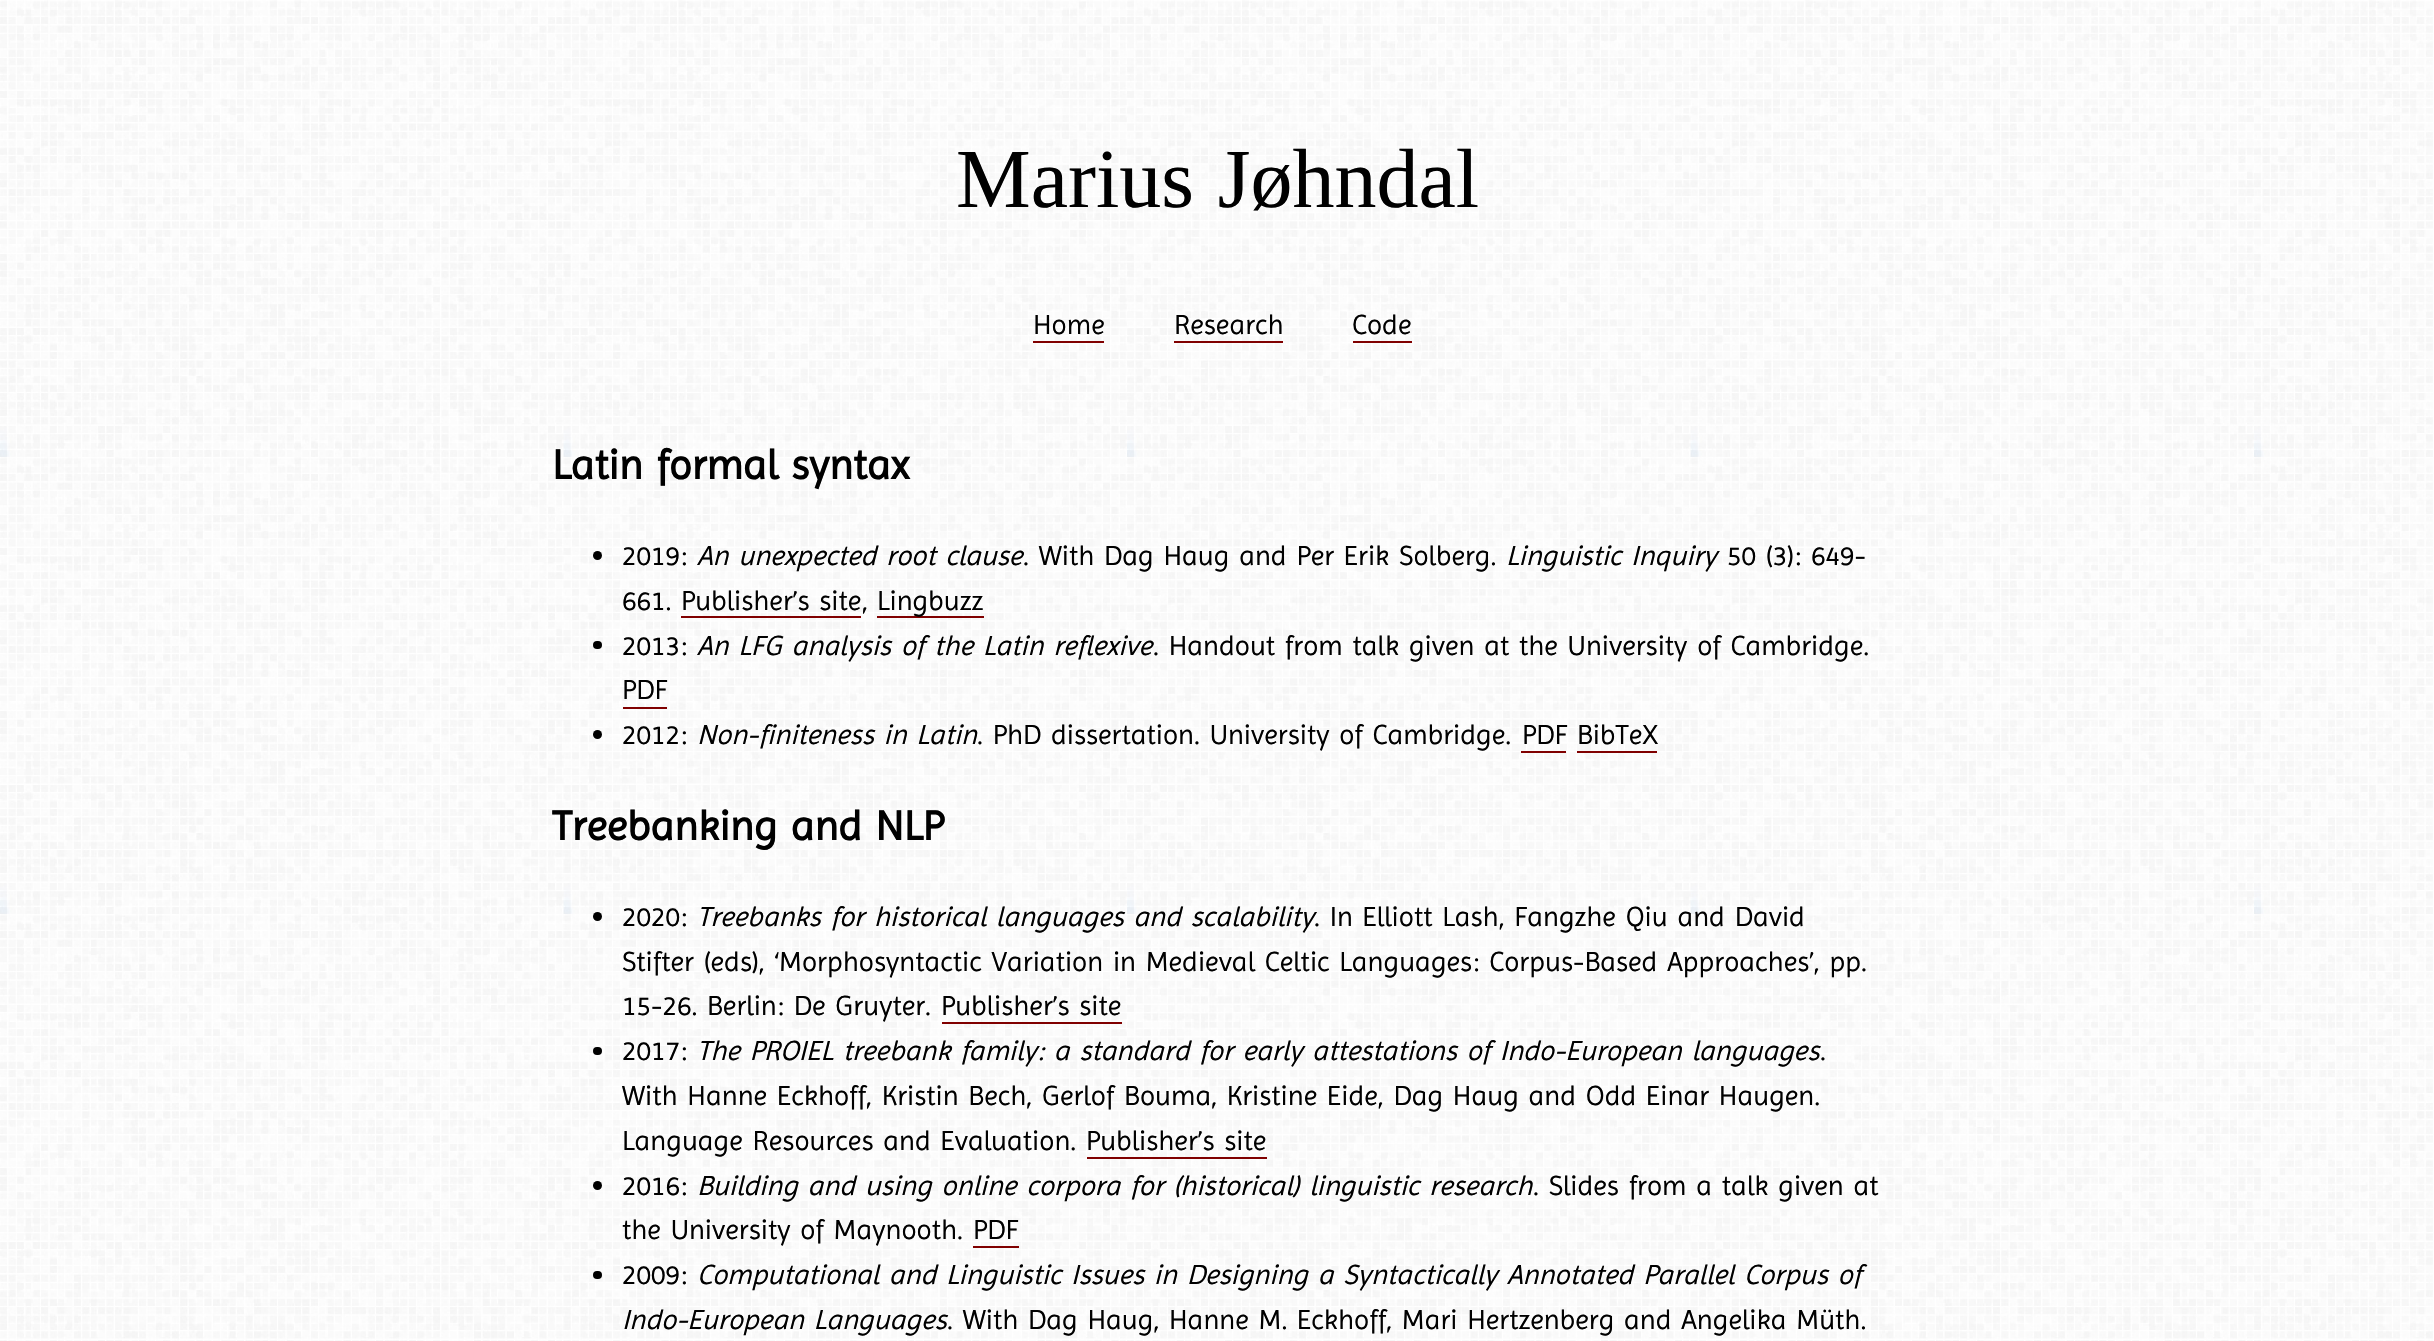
void draw(SkCanvas* canvas) {
    SkPaint paint;
    paint.setAntiAlias(true);
    auto spacedText = [&](const char* s, float x, float y, const SkFont& font, const SkPaint& ink, float letter, float word) {
        std::vector<SkGlyphID> glyphs(font.countText(s, strlen(s), SkTextEncoding::kUTF8));
        std::vector<float> xs(glyphs.size());
        font.textToGlyphs(s, strlen(s), SkTextEncoding::kUTF8, glyphs);
        font.getXPos(glyphs, xs, x);
        float extra = 0;
        for (size_t i = 0; i < glyphs.size(); i++) {
            xs[i] += extra;
            extra += letter + word * (glyphs[i] == font.unicharToGlyph(' '));
        }
        canvas->drawTextBlob(SkTextBlob::MakeFromPosHGlyphs(glyphs, xs, y, font), 0, 0, ink);
    };
    canvas->clear(0xFFFFFFFF);
    canvas->drawImageRect(SkImages::DeferredFromEncodedData(SkData::MakeFromFileName("img1.png")), SkRect::MakeXYWH(0, 0, 2433, 1341), SkSamplingOptions());
    SkFont font1(fontMgr->matchFamilyStyle("Liberation Serif", SkFontStyle::Normal()), 84);
    font1.setSubpixel(true);
    paint.setColor(0xFF000000);
    spacedText("Marius Jøhndal", 956, 207, font1, paint, 0, 2.75f);
    SkFont font2(fontMgr->matchFamilyStyle("Imprima", SkFontStyle::Normal()), 28);
    font2.setSubpixel(true);
    canvas->drawString("Home", 1033, 334, font2, paint);
    paint.setColor(0xFF800000);
    canvas->drawRect(SkRect::MakeXYWH(1033, 341, 71, 2), paint);
    paint.setColor(0xFF000000);
    canvas->drawString("Research", 1174, 334, font2, paint);
    paint.setColor(0xFF800000);
    canvas->drawRect(SkRect::MakeXYWH(1174, 341, 109, 2), paint);
    paint.setColor(0xFF000000);
    canvas->drawString("Code", 1352, 334, font2, paint);
    paint.setColor(0xFF800000);
    canvas->drawRect(SkRect::MakeXYWH(1353, 341, 59, 2), paint);
    SkFont font3(fontMgr->matchFamilyStyle("Imprima", SkFontStyle::Bold()), 42);
    font3.setSubpixel(true);
    paint.setColor(0xFF000000);
    spacedText("Latin formal syntax", 552, 479, font3, paint, 0, 2.75f);
    canvas->drawCircle(597.5f, 555.5f, 4.5f, paint);
    canvas->drawString("2019:", 622, 565, font2, paint);
    SkFont font4(fontMgr->matchFamilyStyle("Imprima", SkFontStyle::Italic()), 28);
    font4.setSubpixel(true);
    spacedText("An unexpected root clause", 697, 565, font4, paint, 0, 2.75f);
    spacedText(". With Dag Haug and Per Erik Solberg.", 1023, 565, font2, paint, 0, 2.75f);
    spacedText("Linguistic Inquiry", 1506, 565, font4, paint, 0, 2.75f);
    spacedText("50 (3): 649-", 1727, 565, font2, paint, 0, 2.75f);
    canvas->drawString("661.", 622, 610, font2, paint);
    spacedText("Publisher’s site", 681, 610, font2, paint, 0, 2.75f);
    paint.setColor(0xFF800000);
    canvas->drawRect(SkRect::MakeXYWH(681, 616, 180, 2), paint);
    paint.setColor(0xFF000000);
    canvas->drawString(",", 862, 610, font2, paint);
    paint.setColor(0xFF800000);
    canvas->drawRect(SkRect::MakeXYWH(877, 616, 107, 2), paint);
    paint.setColor(0xFF000000);
    canvas->drawString("Lingbuzz", 877, 610, font2, paint);
    canvas->drawRoundRect(SkRect::MakeXYWH(593, 641, 9, 8), 4, 4, paint);
    canvas->drawString("2013:", 622, 655, font2, paint);
    spacedText("An LFG analysis of the Latin reflexive", 697, 655, font4, paint, 0, 2.75f);
    spacedText(". Handout from talk given at the University of Cambridge.", 1153, 655, font2, paint, 0, 2.75f);
    canvas->drawString("PDF", 622, 699, font2, paint);
    paint.setColor(0xFF800000);
    canvas->drawRect(SkRect::MakeXYWH(623, 707, 44, 2), paint);
    paint.setColor(0xFF000000);
    canvas->drawCircle(597.5f, 734.5f, 4.5f, paint);
    canvas->drawString("2012:", 622, 744, font2, paint);
    spacedText("Non-finiteness in Latin", 697, 744, font4, paint, 0, 2.75f);
    spacedText(". PhD dissertation. University of Cambridge.", 977, 744, font2, paint, 0, 2.75f);
    canvas->drawString("PDF", 1522, 744, font2, paint);
    paint.setColor(0xFF800000);
    canvas->drawRect(SkRect::MakeXYWH(1521, 751, 45, 2), paint);
    paint.setColor(0xFF000000);
    canvas->drawString("BibTeX", 1577, 744, font2, paint);
    paint.setColor(0xFF800000);
    canvas->drawRect(SkRect::MakeXYWH(1577, 751, 80, 2), paint);
    paint.setColor(0xFF000000);
    spacedText("Treebanking and NLP", 552, 840, font3, paint, 0, 2.75f);
    canvas->drawCircle(597.5f, 916.5f, 4.5f, paint);
    canvas->drawString("2020:", 622, 926, font2, paint);
    spacedText("Treebanks for historical languages and scalability", 697, 926, font4, paint, 0, 2.75f);
    spacedText(". In Elliott Lash, Fangzhe Qiu and David", 1314, 926, font2, paint, 0, 2.75f);
    spacedText("Stifter (eds), ‘Morphosyntactic Variation in Medieval Celtic Languages: Corpus-Based Approaches’, pp.", 622, 971, font2, paint, 0, 2.75f);
    spacedText("15-26. Berlin: De Gruyter.", 622, 1015, font2, paint, 0, 2.75f);
    spacedText("Publisher’s site", 941, 1015, font2, paint, 0, 2.75f);
    paint.setColor(0xFF800000);
    canvas->drawRect(SkRect::MakeXYWH(942, 1022, 180, 2), paint);
    paint.setColor(0xFF000000);
    canvas->drawRoundRect(SkRect::MakeXYWH(593, 1047, 9, 8), 4, 4, paint);
    canvas->drawString("2017:", 622, 1060, font2, paint);
    spacedText("The PROIEL treebank family: a standard for early attestations of Indo-European languages", 697, 1060, font4, paint, 0, 2.75f);
    canvas->drawString(".", 1820, 1060, font2, paint);
    spacedText("With Hanne Eckhoff, Kristin Bech, Gerlof Bouma, Kristine Eide, Dag Haug and Odd Einar Haugen.", 622, 1105, font2, paint, 0, 2.75f);
    spacedText("Language Resources and Evaluation.", 622, 1150, font2, paint, 0, 2.75f);
    spacedText("Publisher’s site", 1086, 1150, font2, paint, 0, 2.75f);
    paint.setColor(0xFF800000);
    canvas->drawRect(SkRect::MakeXYWH(1087, 1157, 180, 2), paint);
    paint.setColor(0xFF000000);
    canvas->drawCircle(597.5f, 1185.5f, 4.5f, paint);
    canvas->drawString("2016:", 622, 1195, font2, paint);
    spacedText("Building and using online corpora for (historical) linguistic research", 697, 1195, font4, paint, 0, 2.75f);
    spacedText(". Slides from a talk given at", 1533, 1195, font2, paint, 0, 2.75f);
    spacedText("the University of Maynooth.", 622, 1239, font2, paint, 0, 2.75f);
    canvas->drawString("PDF", 973, 1239, font2, paint);
    paint.setColor(0xFF800000);
    canvas->drawRect(SkRect::MakeXYWH(973, 1246, 46, 2), paint);
    paint.setColor(0xFF000000);
    canvas->drawRoundRect(SkRect::MakeXYWH(593, 1271, 9, 8), 4, 4, paint);
    canvas->drawString("2009:", 622, 1284, font2, paint);
    spacedText("Computational and Linguistic Issues in Designing a Syntactically Annotated Parallel Corpus of", 697, 1284, font4, paint, 0, 2.75f);
    spacedText("Indo-European Languages", 622, 1329, font4, paint, 0, 2.75f);
    spacedText(". With Dag Haug, Hanne M. Eckhoff, Mari Hertzenberg and Angelika Müth.", 947, 1329, font2, paint, 0, 2.75f);
}
